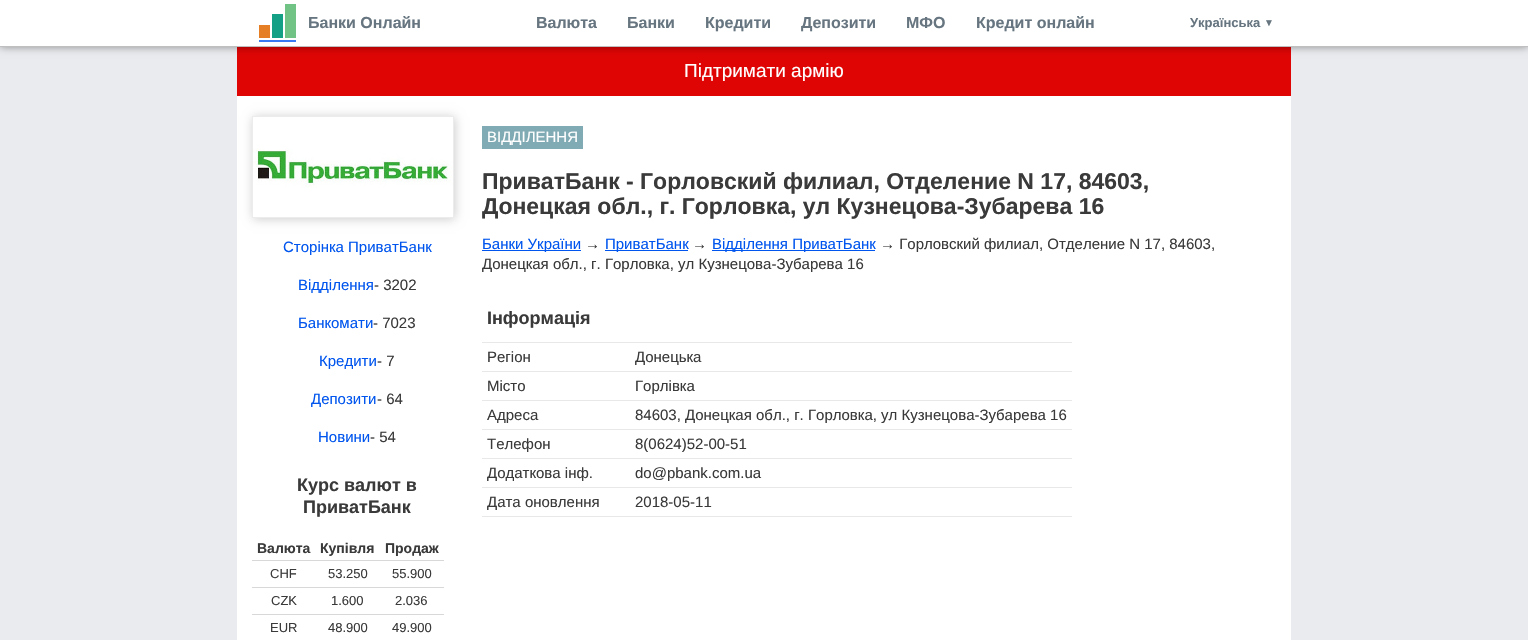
void draw(SkCanvas* canvas) {
    SkPaint paint;
    paint.setAntiAlias(true);
    canvas->clear(0xFFE9EBEE);
    paint.setColor(0xFFFFFFFF);
    canvas->drawRect(SkRect::MakeXYWH(237, 96, 1054, 544), paint);
    paint.setColor(0xFFDF0505);
    canvas->drawRect(SkRect::MakeXYWH(237, 47, 1054, 49), paint);
    paint.setColor(0x66000000);
    paint.setMaskFilter(SkMaskFilter::MakeBlur(kNormal_SkBlurStyle, 4));
    canvas->drawRect(SkRect::MakeXYWH(0, 0, 1528, 47), paint);
    paint.setMaskFilter(nullptr);
    paint.setColor(0xFFFFFFFF);
    canvas->drawRect(SkRect::MakeXYWH(0, 0, 1528, 46), paint);
    paint.setColor(0xFFBFBFBF);
    canvas->drawRect(SkRect::MakeXYWH(0, 46, 1528, 1), paint);
    canvas->drawImageRect(SkImages::DeferredFromEncodedData(SkData::MakeFromFileName("img1.png")), SkRect::MakeXYWH(259, 4, 37, 38), SkSamplingOptions());
    SkFont font1(fontMgr->matchFamilyStyle("Liberation Sans", SkFontStyle::Bold()), 16);
    font1.setSubpixel(true);
    paint.setColor(0xFF66757F);
    canvas->drawString("Банки Онлайн", 308, 28, font1, paint);
    canvas->drawString("Валюта", 536, 28, font1, paint);
    canvas->drawString("Банки", 627, 28, font1, paint);
    canvas->drawString("Кредити", 705, 28, font1, paint);
    canvas->drawString("Депозити", 801, 28, font1, paint);
    canvas->drawString("МФО", 906, 28, font1, paint);
    canvas->drawString("Кредит онлайн", 976, 28, font1, paint);
    SkFont font2(fontMgr->matchFamilyStyle("Liberation Sans", SkFontStyle::Bold()), 13);
    font2.setSubpixel(true);
    canvas->drawString("Українська", 1190, 27, font2, paint);
    SkFont font3(fontMgr->matchFamilyStyle("Liberation Sans", SkFontStyle::Bold()), 10);
    font3.setSubpixel(true);
    canvas->drawString("▼", 1264, 26, font3, paint);
    SkFont font4(fontMgr->matchFamilyStyle("Liberation Sans", SkFontStyle::Normal()), 19);
    font4.setSubpixel(true);
    paint.setColor(0xFFFFFFFF);
    canvas->drawString("Підтримати армію", 684, 77, font4, paint);
    canvas->save();
    canvas->clipPath(SkPathBuilder(SkPathFillType::kEvenOdd).moveTo(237, 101).lineTo(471, 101).lineTo(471, 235).lineTo(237, 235).close().moveTo(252, 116).lineTo(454, 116).lineTo(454, 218).lineTo(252, 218).close().detach(), true);
    paint.setColor(0xFFCCCCCC);
    paint.setMaskFilter(SkMaskFilter::MakeBlur(kNormal_SkBlurStyle, 5));
    canvas->drawRect(SkRect::MakeXYWH(253, 117, 202, 102), paint);
    paint.setMaskFilter(nullptr);
    canvas->restore();
    paint.setStyle(SkPaint::kStroke_Style);
    paint.setStrokeWidth(1);
    paint.setColor(0xFFECECEC);
    canvas->drawRect(SkRect::MakeXYWH(252.5f, 116.5f, 201, 101), paint);
    canvas->drawImageRect(SkImages::DeferredFromEncodedData(SkData::MakeFromFileName("img2.png")), SkRect::MakeXYWH(253, 148, 200, 40), SkSamplingOptions());
    SkFont font5(fontMgr->matchFamilyStyle("Liberation Sans", SkFontStyle::Normal()), 15);
    font5.setSubpixel(true);
    paint.setStyle(SkPaint::kFill_Style);
    paint.setColor(0xFF0055EE);
    canvas->drawString("Сторінка ПриватБанк", 283, 252, font5, paint);
    canvas->drawString("Відділення", 298, 290, font5, paint);
    paint.setColor(0xFF3A3A3A);
    canvas->drawString("- 3202", 374, 290, font5, paint);
    paint.setColor(0xFF0055EE);
    canvas->drawString("Банкомати", 298, 328, font5, paint);
    paint.setColor(0xFF3A3A3A);
    canvas->drawString("- 7023", 373, 328, font5, paint);
    paint.setColor(0xFF0055EE);
    canvas->drawString("Кредити", 319, 366, font5, paint);
    paint.setColor(0xFF3A3A3A);
    canvas->drawString("- 7", 377, 366, font5, paint);
    paint.setColor(0xFF0055EE);
    canvas->drawString("Депозити", 311, 404, font5, paint);
    paint.setColor(0xFF3A3A3A);
    canvas->drawString("- 64", 377, 404, font5, paint);
    paint.setColor(0xFF0055EE);
    canvas->drawString("Новини", 318, 442, font5, paint);
    paint.setColor(0xFF3A3A3A);
    canvas->drawString("- 54", 370, 442, font5, paint);
    SkFont font6(fontMgr->matchFamilyStyle("Liberation Sans", SkFontStyle::Bold()), 18);
    font6.setSubpixel(true);
    canvas->drawString("Курс валют в", 297, 491, font6, paint);
    canvas->drawString("ПриватБанк", 303, 513, font6, paint);
    paint.setColor(0xFFD8D8D8);
    canvas->drawRect(SkRect::MakeXYWH(252, 560, 192, 1), paint);
    SkFont font7(fontMgr->matchFamilyStyle("Liberation Sans", SkFontStyle::Bold()), 14);
    font7.setSubpixel(true);
    paint.setColor(0xFF3A3A3A);
    canvas->drawString("Валюта", 257, 553, font7, paint);
    canvas->drawString("Купівля", 320, 553, font7, paint);
    canvas->drawString("Продаж", 385, 553, font7, paint);
    paint.setColor(0xFFD8D8D8);
    canvas->drawRect(SkRect::MakeXYWH(252, 587, 192, 1), paint);
    SkFont font8(fontMgr->matchFamilyStyle("Liberation Sans", SkFontStyle::Normal()), 13);
    font8.setSubpixel(true);
    paint.setColor(0xFF3A3A3A);
    canvas->drawString("CHF", 270, 578, font8, paint);
    canvas->drawString("53.250", 328, 578, font8, paint);
    canvas->drawString("55.900", 392, 578, font8, paint);
    paint.setColor(0xFFD8D8D8);
    canvas->drawRect(SkRect::MakeXYWH(252, 614, 192, 1), paint);
    paint.setColor(0xFF3A3A3A);
    canvas->drawString("CZK", 271, 605, font8, paint);
    canvas->drawString("1.600", 331, 605, font8, paint);
    canvas->drawString("2.036", 395, 605, font8, paint);
    canvas->drawString("EUR", 270, 632, font8, paint);
    canvas->drawString("48.900", 328, 632, font8, paint);
    canvas->drawString("49.900", 392, 632, font8, paint);
    paint.setColor(0xFF80AAB4);
    canvas->drawRect(SkRect::MakeXYWH(482, 126, 101, 23), paint);
    paint.setColor(0xFFFFFFFF);
    canvas->drawString("ВІДДІЛЕННЯ", 487, 142, font5, paint);
    SkFont font9(fontMgr->matchFamilyStyle("Liberation Sans", SkFontStyle::Bold()), 23);
    font9.setSubpixel(true);
    paint.setColor(0xFF3A3A3A);
    canvas->drawString("ПриватБанк - Горловский филиал, Отделение N 17, 84603,", 482, 189, font9, paint);
    canvas->drawString("Донецкая обл., г. Горловка, ул Кузнецова-Зубарева 16", 482, 214, font9, paint);
    paint.setColor(0xFF0055EE);
    canvas->drawRect(SkRect::MakeXYWH(482, 250, 99, 1), paint);
    canvas->drawString("Банки України", 482, 249, font5, paint);
    paint.setColor(0xFF3A3A3A);
    canvas->drawString("→", 585, 249, font5, paint);
    paint.setColor(0xFF0055EE);
    canvas->drawRect(SkRect::MakeXYWH(605, 250, 83, 1), paint);
    canvas->drawString("ПриватБанк", 605, 249, font5, paint);
    paint.setColor(0xFF3A3A3A);
    canvas->drawString("→", 692, 249, font5, paint);
    paint.setColor(0xFF0055EE);
    canvas->drawRect(SkRect::MakeXYWH(712, 250, 163, 1), paint);
    canvas->drawString("Відділення ПриватБанк", 712, 249, font5, paint);
    paint.setColor(0xFF3A3A3A);
    canvas->drawString("→ Горловский филиал, Отделение N 17, 84603,", 880, 249, font5, paint);
    canvas->drawString("Донецкая обл., г. Горловка, ул Кузнецова-Зубарева 16", 482, 269, font5, paint);
    paint.setColor(0xFFE8E8E8);
    canvas->drawRect(SkRect::MakeXYWH(482, 342, 590, 1), paint);
    paint.setColor(0xFF3A3A3A);
    canvas->drawString("Інформація", 487, 324, font6, paint);
    paint.setColor(0xFFE8E8E8);
    canvas->drawRect(SkRect::MakeXYWH(482, 371, 590, 1), paint);
    paint.setColor(0xFF3A3A3A);
    canvas->drawString("Регіон", 487, 362, font5, paint);
    canvas->drawString("Донецька", 635, 362, font5, paint);
    paint.setColor(0xFFE8E8E8);
    canvas->drawRect(SkRect::MakeXYWH(482, 400, 590, 1), paint);
    paint.setColor(0xFF3A3A3A);
    canvas->drawString("Місто", 487, 391, font5, paint);
    canvas->drawString("Горлівка", 635, 391, font5, paint);
    paint.setColor(0xFFE8E8E8);
    canvas->drawRect(SkRect::MakeXYWH(482, 429, 590, 1), paint);
    paint.setColor(0xFF3A3A3A);
    canvas->drawString("Адреса", 487, 420, font5, paint);
    canvas->drawString("84603, Донецкая обл., г. Горловка, ул Кузнецова-Зубарева 16", 635, 420, font5, paint);
    paint.setColor(0xFFE8E8E8);
    canvas->drawRect(SkRect::MakeXYWH(482, 458, 590, 1), paint);
    paint.setColor(0xFF3A3A3A);
    canvas->drawString("Телефон", 487, 449, font5, paint);
    canvas->drawString("8(0624)52-00-51", 635, 449, font5, paint);
    paint.setColor(0xFFE8E8E8);
    canvas->drawRect(SkRect::MakeXYWH(482, 487, 590, 1), paint);
    paint.setColor(0xFF3A3A3A);
    canvas->drawString("Додаткова інф.", 487, 478, font5, paint);
    canvas->drawString("do@pbank.com.ua", 635, 478, font5, paint);
    paint.setColor(0xFFE8E8E8);
    canvas->drawRect(SkRect::MakeXYWH(482, 516, 590, 1), paint);
    paint.setColor(0xFF3A3A3A);
    canvas->drawString("Дата оновлення", 487, 507, font5, paint);
    canvas->drawString("2018-05-11", 635, 507, font5, paint);
}
